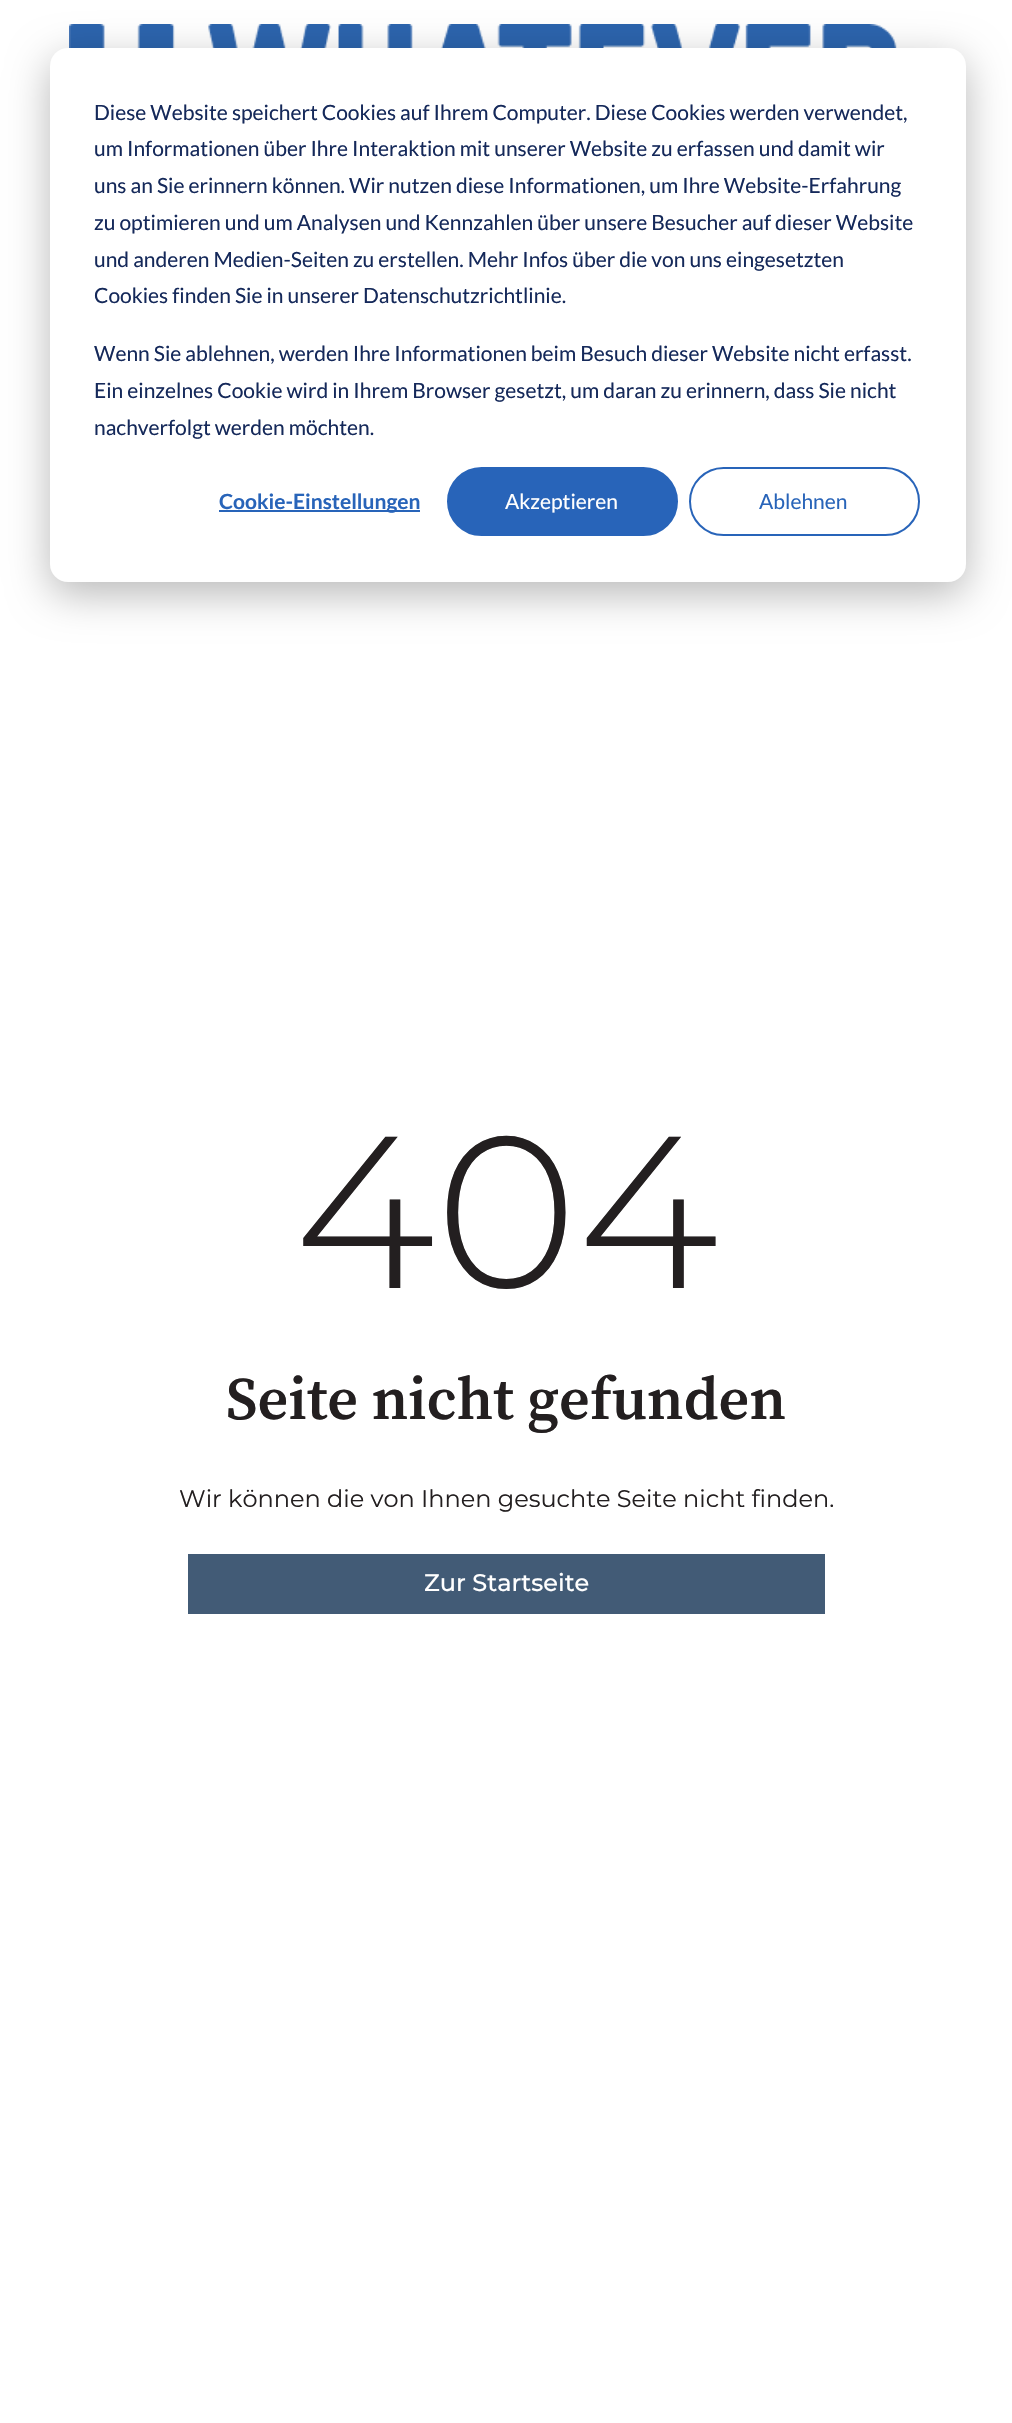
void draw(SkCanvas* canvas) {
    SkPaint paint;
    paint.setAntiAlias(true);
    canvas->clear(0xFFFFFFFF);
    canvas->drawImageRect(SkImages::DeferredFromEncodedData(SkData::MakeFromFileName("img1.png")), SkRect::MakeXYWH(69, 24, 828, 24), SkSamplingOptions());
    paint.setColor(0x47000000);
    paint.setMaskFilter(SkMaskFilter::MakeBlur(kNormal_SkBlurStyle, 21));
    canvas->drawRoundRect(SkRect::MakeXYWH(50, 60, 916, 534), 18, 18, paint);
    paint.setMaskFilter(nullptr);
    paint.setColor(0xFFFFFFFF);
    canvas->drawRoundRect(SkRect::MakeXYWH(50, 48, 916, 534), 18, 18, paint);
    SkFont font1(fontMgr->matchFamilyStyle("Lato", SkFontStyle::Normal()), 21);
    font1.setSubpixel(true);
    paint.setColor(0xFF15295A);
    canvas->drawString("Diese Website speichert Cookies auf Ihrem Computer. Diese Cookies werden verwendet,", 94, 120, font1, paint);
    canvas->drawString("um Informationen über Ihre Interaktion mit unserer Website zu erfassen und damit wir", 94, 156, font1, paint);
    canvas->drawString("uns an Sie erinnern können. Wir nutzen diese Informationen, um Ihre Website-Erfahrung", 94, 193, font1, paint);
    canvas->drawString("zu optimieren und um Analysen und Kennzahlen über unsere Besucher auf dieser Website", 94, 230, font1, paint);
    canvas->drawString("und anderen Medien-Seiten zu erstellen. Mehr Infos über die von uns eingesetzten", 94, 267, font1, paint);
    canvas->drawString("Cookies finden Sie in unserer Datenschutzrichtlinie.", 94, 303, font1, paint);
    canvas->drawString("Wenn Sie ablehnen, werden Ihre Informationen beim Besuch dieser Website nicht erfasst.", 94, 361, font1, paint);
    canvas->drawString("Ein einzelnes Cookie wird in Ihrem Browser gesetzt, um daran zu erinnern, dass Sie nicht", 94, 398, font1, paint);
    canvas->drawString("nachverfolgt werden möchten.", 94, 435, font1, paint);
    paint.setColor(0xFF2864B9);
    canvas->drawRect(SkRect::MakeXYWH(219, 510, 201, 2), paint);
    SkFont font2(fontMgr->matchFamilyStyle("Lato", SkFontStyle::Bold()), 21);
    font2.setSubpixel(true);
    canvas->drawString("Cookie-Einstellungen", 219, 509, font2, paint);
    canvas->drawRoundRect(SkRect::MakeXYWH(448, 468, 229, 67), 33.5f, 33.5f, paint);
    paint.setStyle(SkPaint::kStroke_Style);
    paint.setStrokeWidth(2);
    canvas->drawRoundRect(SkRect::MakeXYWH(448, 468, 229, 67), 33.5f, 33.5f, paint);
    paint.setStyle(SkPaint::kFill_Style);
    paint.setColor(0xFFFFFFFF);
    canvas->drawString("Akzeptieren", 505, 509, font1, paint);
    paint.setStyle(SkPaint::kStroke_Style);
    paint.setColor(0xFF2864B9);
    canvas->drawRoundRect(SkRect::MakeXYWH(690, 468, 229, 67), 33.5f, 33.5f, paint);
    paint.setStyle(SkPaint::kFill_Style);
    canvas->drawString("Ablehnen", 759, 509, font1, paint);
    SkFont font3(fontMgr->matchFamilyStyle("Montserrat", SkFontStyle(300, SkFontStyle::kNormal_Width, SkFontStyle::kUpright_Slant)), 216);
    font3.setSubpixel(true);
    paint.setColor(0xFF231F20);
    canvas->drawString("404", 294, 1288, font3, paint);
    SkFont font4(fontMgr->matchFamilyStyle("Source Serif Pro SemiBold", SkFontStyle(600, SkFontStyle::kNormal_Width, SkFontStyle::kUpright_Slant)), 60);
    font4.setSubpixel(true);
    canvas->drawString("Seite nicht gefunden", 226, 1419, font4, paint);
    SkFont font5(fontMgr->matchFamilyStyle("Montserrat", SkFontStyle::Normal()), 24);
    font5.setSubpixel(true);
    canvas->drawString("Wir können die von Ihnen gesuchte Seite nicht finden.", 179, 1507, font5, paint);
    paint.setColor(0xFF425B76);
    canvas->drawRect(SkRect::MakeXYWH(188, 1554, 637, 60), paint);
    SkFont font6(fontMgr->matchFamilyStyle("Montserrat", SkFontStyle(500, SkFontStyle::kNormal_Width, SkFontStyle::kUpright_Slant)), 24);
    font6.setSubpixel(true);
    paint.setColor(0xFFFFFFFF);
    canvas->drawString("Zur Startseite", 424, 1591, font6, paint);
}
